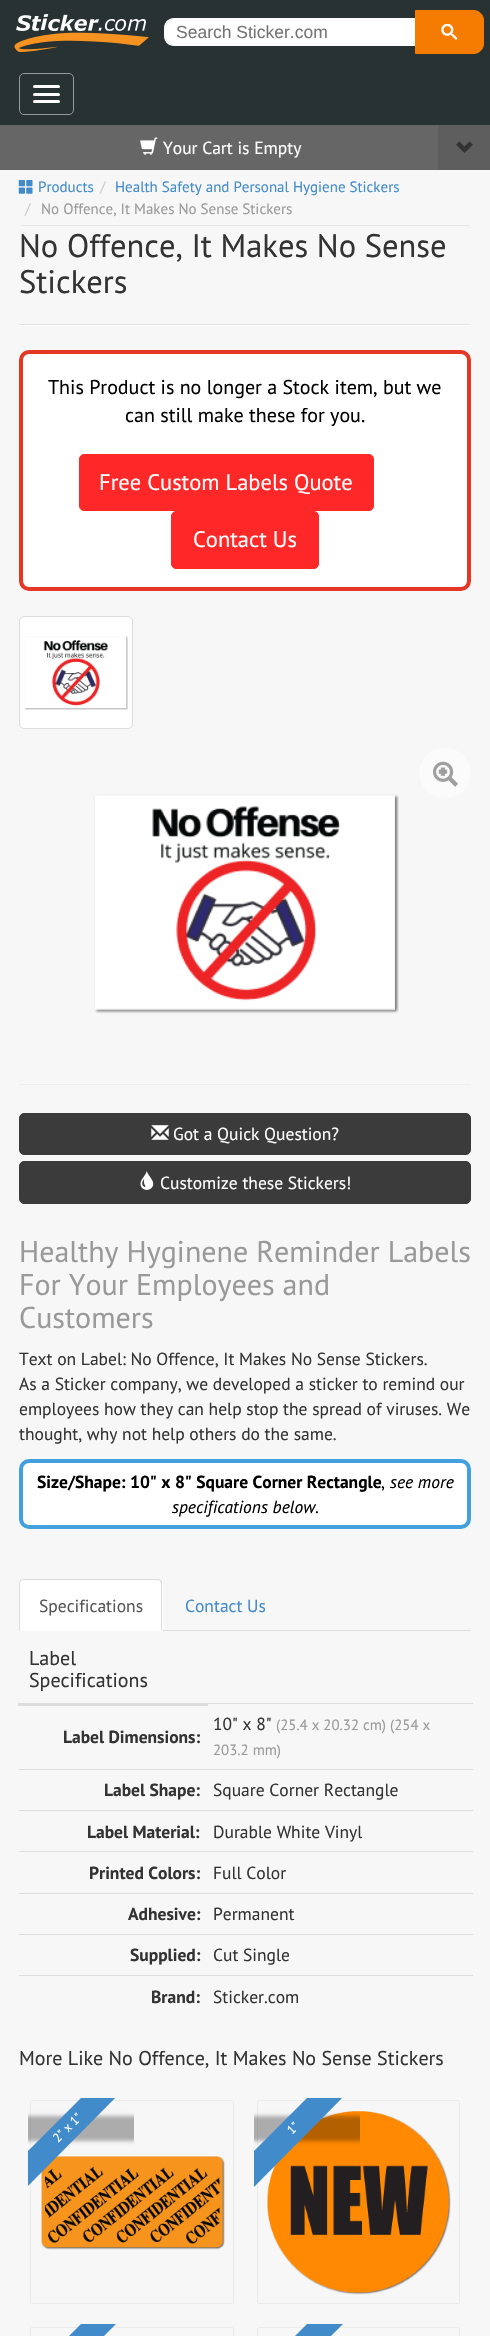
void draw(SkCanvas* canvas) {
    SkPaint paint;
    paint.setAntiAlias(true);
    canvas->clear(0xFF283233);
    canvas->drawImageRect(SkImages::DeferredFromEncodedData(SkData::MakeFromFileName("img1.png")), SkRect::MakeXYWH(14, 14, 135, 38), SkSamplingOptions());
    paint.setColor(0xFFFFFFFF);
    canvas->drawPath(SkPathBuilder().moveTo(174, 18).lineTo(415, 18).lineTo(415, 46).lineTo(174, 46).cubicTo(168.5f, 46, 164, 41.5f, 164, 36).lineTo(164, 28).cubicTo(164, 22.5f, 168.5f, 18, 174, 18).close().detach(), paint);
    canvas->save();
    canvas->clipPath(SkPathBuilder().moveTo(174, 18).lineTo(415, 18).lineTo(415, 46).lineTo(174, 46).cubicTo(168.5f, 46, 164, 41.5f, 164, 36).lineTo(164, 28).cubicTo(164, 22.5f, 168.5f, 18, 174, 18).close().detach(), true);
    canvas->drawRect(SkRect::MakeXYWH(166, 20, 247, 25), paint);
    canvas->restore();
    SkFont font1(fontMgr->matchFamilyStyle("Liberation Sans", SkFontStyle::Normal()), 17.5f);
    font1.setSubpixel(true);
    paint.setColor(0xFF757575);
    canvas->drawString("Search Sticker.com", 176, 38, font1, paint);
    paint.setColor(0xFFF57C00);
    canvas->drawPath(SkPathBuilder().moveTo(415.5f, 10.5f).lineTo(474, 10.5f).cubicTo(479, 10.5f, 483.5f, 15, 483.5f, 20).lineTo(483.5f, 44).cubicTo(483.5f, 49, 479, 53.5f, 474, 53.5f).lineTo(415.5f, 53.5f).close().detach(), paint);
    paint.setStyle(SkPaint::kStroke_Style);
    paint.setStrokeWidth(1);
    canvas->drawPath(SkPathBuilder().moveTo(415.5f, 10.5f).lineTo(474, 10.5f).cubicTo(479, 10.5f, 483.5f, 15, 483.5f, 20).lineTo(483.5f, 44).cubicTo(483.5f, 49, 479, 53.5f, 474, 53.5f).lineTo(415.5f, 53.5f).close().detach(), paint);
    canvas->drawImageRect(SkImages::DeferredFromEncodedData(SkData::MakeFromFileName("img2.png")), SkRect::MakeXYWH(441, 24, 17, 16), SkSamplingOptions());
    paint.setColor(0xFF949999);
    canvas->drawRoundRect(SkRect::MakeXYWH(19.5f, 73.5f, 54, 41), 4.5f, 4.5f, paint);
    paint.setStyle(SkPaint::kFill_Style);
    paint.setColor(0xFFFFFFFF);
    canvas->drawRoundRect(SkRect::MakeXYWH(33, 85, 27, 3), 1.5f, 1.5f, paint);
    canvas->drawRoundRect(SkRect::MakeXYWH(33, 93, 27, 3), 1.5f, 1.5f, paint);
    canvas->drawRoundRect(SkRect::MakeXYWH(33, 100, 27, 3), 1.5f, 1.5f, paint);
    paint.setColor(0xFFF7F7F7);
    canvas->drawRect(SkRect::MakeXYWH(0, 170, 490, 2166), paint);
    paint.setColor(0xFF666666);
    canvas->drawRect(SkRect::MakeXYWH(0, 125, 438, 45), paint);
    canvas->drawImageRect(SkImages::DeferredFromEncodedData(SkData::MakeFromFileName("img3.png")), SkRect::MakeXYWH(140, 137, 18, 18), SkSamplingOptions());
    SkFont font2(fontMgr->matchFamilyStyle("PT Sans", SkFontStyle::Normal()), 17.5f);
    font2.setSubpixel(true);
    paint.setColor(0xFFFFFFFF);
    canvas->drawString("Your Cart is Empty", 163, 154, font2, paint);
    paint.setColor(0xFF5E5E5E);
    canvas->drawRect(SkRect::MakeXYWH(438, 125, 52, 45), paint);
    canvas->drawImageRect(SkImages::DeferredFromEncodedData(SkData::MakeFromFileName("img4.png")), SkRect::MakeXYWH(456, 141, 17, 12), SkSamplingOptions());
    paint.setColor(0xFFE6E6E6);
    canvas->drawRect(SkRect::MakeXYWH(21, 225, 448, 1), paint);
    canvas->drawImageRect(SkImages::DeferredFromEncodedData(SkData::MakeFromFileName("img5.png")), SkRect::MakeXYWH(18, 180, 15, 14), SkSamplingOptions());
    SkFont font3(fontMgr->matchFamilyStyle("PT Sans", SkFontStyle::Normal()), 15);
    font3.setSubpixel(true);
    paint.setColor(0xFF428BCA);
    canvas->drawString("Products", 38, 192, font3, paint);
    paint.setColor(0xFFCCCCCC);
    canvas->drawString("/", 100, 192, font3, paint);
    paint.setColor(0xFF428BCA);
    canvas->drawString("Health Safety and Personal Hygiene Stickers", 115, 192, font3, paint);
    paint.setColor(0xFFCCCCCC);
    canvas->drawString("/", 25, 214, font3, paint);
    paint.setColor(0xFF999999);
    canvas->drawString("No Offence, It Makes No Sense Stickers", 41, 214, font3, paint);
    paint.setColor(0xFFFFFFFF);
    canvas->drawRect(SkRect::MakeXYWH(19, 325, 452, 1), paint);
    paint.setColor(0xFFE3E3E3);
    canvas->drawRect(SkRect::MakeXYWH(19, 324, 452, 1), paint);
    SkFont font4(fontMgr->matchFamilyStyle("PT Sans", SkFontStyle::Normal()), 32.5f);
    font4.setSubpixel(true);
    paint.setColor(0xFF333333);
    canvas->drawString("No Offence, It Makes No Sense", 19, 257, font4, paint);
    canvas->drawString("Stickers", 19, 293, font4, paint);
    paint.setColor(0xFFFFFFFF);
    canvas->drawRoundRect(SkRect::MakeXYWH(21, 352, 448, 237), 8, 8, paint);
    paint.setStyle(SkPaint::kStroke_Style);
    paint.setStrokeWidth(4);
    paint.setColor(0xFFE43725);
    canvas->drawRoundRect(SkRect::MakeXYWH(21, 352, 448, 237), 8, 8, paint);
    SkFont font5(fontMgr->matchFamilyStyle("PT Sans", SkFontStyle::Normal()), 20);
    font5.setSubpixel(true);
    paint.setStyle(SkPaint::kFill_Style);
    paint.setColor(0xFF000000);
    canvas->drawString("This Product is no longer a Stock item, but we", 48, 394, font5, paint);
    canvas->drawString("can still make these for you.", 125, 422, font5, paint);
    paint.setColor(0xFFFF2828);
    canvas->drawRoundRect(SkRect::MakeXYWH(79.5f, 454.5f, 294, 56), 4.5f, 4.5f, paint);
    paint.setStyle(SkPaint::kStroke_Style);
    paint.setStrokeWidth(1);
    canvas->drawRoundRect(SkRect::MakeXYWH(79.5f, 454.5f, 294, 56), 4.5f, 4.5f, paint);
    SkFont font6(fontMgr->matchFamilyStyle("PT Sans", SkFontStyle::Normal()), 22.5f);
    font6.setSubpixel(true);
    paint.setStyle(SkPaint::kFill_Style);
    paint.setColor(0xFFFFFFFF);
    canvas->drawString("Free Custom Labels Quote", 99, 490, font6, paint);
    paint.setColor(0xFFFF2828);
    canvas->drawRoundRect(SkRect::MakeXYWH(171.5f, 511.5f, 147, 57), 4.5f, 4.5f, paint);
    paint.setStyle(SkPaint::kStroke_Style);
    canvas->drawRoundRect(SkRect::MakeXYWH(171.5f, 511.5f, 147, 57), 4.5f, 4.5f, paint);
    paint.setStyle(SkPaint::kFill_Style);
    paint.setColor(0xFFFFFFFF);
    canvas->drawString("Contact Us", 193, 547, font6, paint);
    canvas->drawRoundRect(SkRect::MakeXYWH(19.5f, 616.5f, 113, 112), 4.5f, 4.5f, paint);
    paint.setStyle(SkPaint::kStroke_Style);
    paint.setColor(0xFFDDDDDD);
    canvas->drawRoundRect(SkRect::MakeXYWH(19.5f, 616.5f, 113, 112), 4.5f, 4.5f, paint);
    canvas->drawImageRect(SkImages::DeferredFromEncodedData(SkData::MakeFromFileName("img6.png")), SkRect::MakeXYWH(24, 636, 104, 74), SkSamplingOptions());
    paint.setStyle(SkPaint::kFill_Style);
    paint.setColor(0xFFFBFBFB);
    canvas->drawRoundRect(SkRect::MakeXYWH(419, 748, 52, 50), 25, 25, paint);
    canvas->drawImageRect(SkImages::DeferredFromEncodedData(SkData::MakeFromFileName("img7.png")), SkRect::MakeXYWH(433, 761, 25, 26), SkSamplingOptions());
    canvas->drawImageRect(SkImages::DeferredFromEncodedData(SkData::MakeFromFileName("img8.png")), SkRect::MakeXYWH(94, 794, 305, 220), SkSamplingOptions());
    paint.setColor(0xFFEEEEEE);
    canvas->drawRect(SkRect::MakeXYWH(19, 1084, 452, 1), paint);
    paint.setColor(0xFF3B3B3B);
    canvas->drawRoundRect(SkRect::MakeXYWH(19.5f, 1113.5f, 451, 41), 4.5f, 4.5f, paint);
    paint.setStyle(SkPaint::kStroke_Style);
    canvas->drawRoundRect(SkRect::MakeXYWH(19.5f, 1113.5f, 451, 41), 4.5f, 4.5f, paint);
    canvas->drawImageRect(SkImages::DeferredFromEncodedData(SkData::MakeFromFileName("img9.png")), SkRect::MakeXYWH(151, 1125, 18, 15), SkSamplingOptions());
    paint.setStyle(SkPaint::kFill_Style);
    paint.setColor(0xFFFFFFFF);
    canvas->drawString("Got a Quick Question?", 173, 1140, font2, paint);
    paint.setColor(0xFF3B3B3B);
    canvas->drawRoundRect(SkRect::MakeXYWH(19.5f, 1161.5f, 451, 42), 4.5f, 4.5f, paint);
    paint.setStyle(SkPaint::kStroke_Style);
    canvas->drawRoundRect(SkRect::MakeXYWH(19.5f, 1161.5f, 451, 42), 4.5f, 4.5f, paint);
    canvas->drawImageRect(SkImages::DeferredFromEncodedData(SkData::MakeFromFileName("img10.png")), SkRect::MakeXYWH(140, 1171, 14, 19), SkSamplingOptions());
    paint.setStyle(SkPaint::kFill_Style);
    paint.setColor(0xFFFFFFFF);
    canvas->drawString("Customize these Stickers!", 160, 1189, font2, paint);
    SkFont font7(fontMgr->matchFamilyStyle("PT Sans", SkFontStyle::Normal()), 30);
    font7.setSubpixel(true);
    paint.setColor(0xFF999999);
    canvas->drawString("Healthy Hyginene Reminder Labels", 19, 1262, font7, paint);
    canvas->drawString("For Your Employees and", 19, 1295, font7, paint);
    canvas->drawString("Customers", 19, 1328, font7, paint);
    paint.setColor(0xFF333333);
    canvas->drawString("Text on Label: No Offence, It Makes No Sense Stickers.", 19, 1365, font2, paint);
    canvas->drawString("As a Sticker company, we developed a sticker to remind our", 19, 1390, font2, paint);
    canvas->drawString("employees how they can help stop the spread of viruses. We", 19, 1415, font2, paint);
    canvas->drawString("thought, why not help others do the same.", 19, 1440, font2, paint);
    paint.setColor(0xFFFFFFFF);
    canvas->drawRoundRect(SkRect::MakeXYWH(21, 1461, 448, 66), 8, 8, paint);
    paint.setStyle(SkPaint::kStroke_Style);
    paint.setStrokeWidth(4);
    paint.setColor(0xFF43A0DF);
    canvas->drawRoundRect(SkRect::MakeXYWH(21, 1461, 448, 66), 8, 8, paint);
    SkFont font8(fontMgr->matchFamilyStyle("PT Sans", SkFontStyle::Bold()), 17.5f);
    font8.setSubpixel(true);
    paint.setStyle(SkPaint::kFill_Style);
    paint.setColor(0xFF000000);
    canvas->drawString("Size/Shape: 10\" x 8\" Square Corner Rectangle", 37, 1488, font8, paint);
    canvas->drawString(",", 381, 1488, font2, paint);
    SkFont font9(fontMgr->matchFamilyStyle("PT Sans", SkFontStyle::Italic()), 17.5f);
    font9.setSubpixel(true);
    canvas->drawString("see more", 390, 1488, font9, paint);
    canvas->drawString("specifications below.", 172, 1513, font9, paint);
    paint.setColor(0xFFDDDDDD);
    canvas->drawRect(SkRect::MakeXYWH(163, 1630, 308, 1), paint);
    paint.setColor(0xFFFFFFFF);
    canvas->drawPath(SkPathBuilder().moveTo(24, 1579).lineTo(158, 1579).cubicTo(161, 1579, 163, 1581, 163, 1584).lineTo(163, 1631).lineTo(19, 1631).lineTo(19, 1584).cubicTo(19, 1581, 21, 1579, 24, 1579).close().detach(), paint);
    paint.setColor(0xFFDDDDDD);
    canvas->drawPath(SkPathBuilder().moveTo(24, 1579).cubicTo(22, 1579, 21, 1580, 20, 1580).lineTo(21, 1581).lineTo(24, 1580).lineTo(158, 1580).lineTo(160, 1581).lineTo(161, 1580).cubicTo(160, 1580, 159, 1579, 158, 1579).close().detach(), paint);
    canvas->drawPath(SkPathBuilder().moveTo(162, 1631).lineTo(162, 1584).cubicTo(162, 1583, 162, 1581, 161, 1580).lineTo(160, 1581).lineTo(161, 1584).lineTo(161, 1630).close().detach(), paint);
    canvas->drawPath(SkPathBuilder().moveTo(20, 1580).cubicTo(20, 1581, 19, 1582, 19, 1584).lineTo(19, 1631).lineTo(20, 1630).lineTo(20, 1584).cubicTo(20, 1583, 20, 1582, 21, 1581).close().detach(), paint);
    paint.setColor(0xFF555555);
    canvas->drawString("Specifications", 39, 1612, font2, paint);
    paint.setColor(0xFF428BCA);
    canvas->drawString("Contact Us", 185, 1612, font2, paint);
    paint.setColor(0xFFDDDDDD);
    canvas->drawRect(SkRect::MakeXYWH(206, 1703, 267, 1), paint);
    canvas->drawRect(SkRect::MakeXYWH(18, 1703, 190, 3), paint);
    paint.setColor(0xFF333333);
    canvas->drawString("Label", 29, 1665, font5, paint);
    canvas->drawString("Specifications", 29, 1687, font5, paint);
    canvas->drawString("Label Dimensions:", 63, 1743, font8, paint);
    canvas->drawString("10\" x 8\"", 213, 1730, font2, paint);
    SkFont font10(fontMgr->matchFamilyStyle("PT Sans", SkFontStyle::Normal()), 14.9f);
    font10.setSubpixel(true);
    paint.setColor(0xFF999999);
    canvas->drawString("(25.4 x 20.32 cm) (254 x", 276, 1730, font10, paint);
    canvas->drawString("203.2 mm)", 213, 1755, font10, paint);
    paint.setColor(0xFF333333);
    canvas->drawString("Label Shape:", 104, 1796, font8, paint);
    paint.setColor(0xFFDDDDDD);
    canvas->drawRect(SkRect::MakeXYWH(19, 1769, 454, 1), paint);
    paint.setColor(0xFF333333);
    canvas->drawString("Square Corner Rectangle", 213, 1796, font2, paint);
    canvas->drawString("Label Material:", 87, 1838, font8, paint);
    paint.setColor(0xFFDDDDDD);
    canvas->drawRect(SkRect::MakeXYWH(19, 1810, 454, 1), paint);
    paint.setColor(0xFF333333);
    canvas->drawString("Durable White Vinyl", 213, 1838, font2, paint);
    canvas->drawString("Printed Colors:", 89, 1879, font8, paint);
    paint.setColor(0xFFDDDDDD);
    canvas->drawRect(SkRect::MakeXYWH(19, 1851, 454, 1), paint);
    paint.setColor(0xFF333333);
    canvas->drawString("Full Color", 213, 1879, font2, paint);
    canvas->drawString("Adhesive:", 128, 1920, font8, paint);
    paint.setColor(0xFFDDDDDD);
    canvas->drawRect(SkRect::MakeXYWH(19, 1893, 454, 1), paint);
    paint.setColor(0xFF333333);
    canvas->drawString("Permanent", 213, 1920, font2, paint);
    canvas->drawString("Supplied:", 130, 1961, font8, paint);
    paint.setColor(0xFFDDDDDD);
    canvas->drawRect(SkRect::MakeXYWH(19, 1934, 454, 1), paint);
    paint.setColor(0xFF333333);
    canvas->drawString("Cut Single", 213, 1961, font2, paint);
    canvas->drawString("Brand:", 151, 2003, font8, paint);
    paint.setColor(0xFFDDDDDD);
    canvas->drawRect(SkRect::MakeXYWH(19, 1975, 454, 1), paint);
    paint.setColor(0xFF333333);
    canvas->drawString("Sticker.com", 213, 2003, font2, paint);
    canvas->drawString("More Like No Offence, It Makes No Sense Stickers", 19, 2065, font5, paint);
    canvas->save();
    canvas->clipPath(SkPathBuilder(SkPathFillType::kEvenOdd).moveTo(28, 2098).lineTo(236, 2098).lineTo(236, 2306).lineTo(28, 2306).close().moveTo(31, 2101).lineTo(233, 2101).lineTo(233, 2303).lineTo(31, 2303).close().detach(), true);
    paint.setColor(0x42000000);
    paint.setMaskFilter(SkMaskFilter::MakeBlur(kNormal_SkBlurStyle, 0.5f));
    canvas->drawRect(SkRect::MakeXYWH(31, 2101, 202, 202), paint);
    paint.setMaskFilter(nullptr);
    canvas->restore();
    canvas->save();
    canvas->clipRect(SkRect::MakeXYWH(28, 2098, 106, 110));
    paint.setColor(0x4D000000);
    paint.setMaskFilter(SkMaskFilter::MakeBlur(kNormal_SkBlurStyle, 2));
    canvas->drawRect(SkRect::MakeXYWH(-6, 2116, 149, 25), paint);
    paint.setMaskFilter(nullptr);
    canvas->restore();
    canvas->drawImageRect(SkImages::DeferredFromEncodedData(SkData::MakeFromFileName("img11.png")), SkRect::MakeXYWH(41, 2156, 184, 94), SkSamplingOptions());
    canvas->save();
    canvas->clipRect(SkRect::MakeXYWH(28, 2098, 106, 110));
    paint.setColor(0xFF428BCA);
    canvas->drawPath(SkPathBuilder().moveTo(6, 2173).lineTo(112, 2067).lineTo(129, 2084).lineTo(23, 2191).close().detach(), paint);
    canvas->restore();
    SkFont font11(fontMgr->matchFamilyStyle("PT Sans", SkFontStyle::Normal()), 12.5f);
    font11.setSubpixel(true);
    paint.setColor(0xFFFFFFFF);
    canvas->save();
    canvas->rotate(-45, 58, 2143);
    canvas->drawString("2\" x 1\"", 58, 2143, font11, paint);
    canvas->restore();
    canvas->save();
    canvas->clipPath(SkPathBuilder(SkPathFillType::kEvenOdd).moveTo(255, 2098).lineTo(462, 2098).lineTo(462, 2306).lineTo(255, 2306).close().moveTo(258, 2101).lineTo(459, 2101).lineTo(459, 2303).lineTo(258, 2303).close().detach(), true);
    paint.setColor(0x42000000);
    paint.setMaskFilter(SkMaskFilter::MakeBlur(kNormal_SkBlurStyle, 0.5f));
    canvas->drawRect(SkRect::MakeXYWH(258, 2101, 201, 202), paint);
    paint.setMaskFilter(nullptr);
    canvas->restore();
    canvas->drawImageRect(SkImages::DeferredFromEncodedData(SkData::MakeFromFileName("img12.png")), SkRect::MakeXYWH(267, 2111, 184, 184), SkSamplingOptions());
    canvas->save();
    canvas->clipRect(SkRect::MakeXYWH(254, 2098, 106, 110));
    paint.setColor(0x4D000000);
    paint.setMaskFilter(SkMaskFilter::MakeBlur(kNormal_SkBlurStyle, 2));
    canvas->drawRect(SkRect::MakeXYWH(219, 2116, 150, 25), paint);
    paint.setMaskFilter(nullptr);
    canvas->restore();
    canvas->save();
    canvas->clipRect(SkRect::MakeXYWH(254, 2098, 106, 110));
    paint.setColor(0xFF428BCA);
    canvas->drawPath(SkPathBuilder().moveTo(232, 2173).lineTo(338, 2067).lineTo(356, 2084).lineTo(250, 2191).close().detach(), paint);
    canvas->restore();
    paint.setColor(0xFFFFFFFF);
    canvas->save();
    canvas->rotate(-45, 292, 2135);
    canvas->drawString("1\"", 292, 2135, font11, paint);
    canvas->restore();
    canvas->save();
    canvas->clipPath(SkPathBuilder(SkPathFillType::kEvenOdd).moveTo(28, 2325).lineTo(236, 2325).lineTo(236, 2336).lineTo(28, 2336).close().moveTo(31, 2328).lineTo(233, 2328).lineTo(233, 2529).lineTo(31, 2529).close().detach(), true);
    paint.setColor(0x42000000);
    paint.setMaskFilter(SkMaskFilter::MakeBlur(kNormal_SkBlurStyle, 0.5f));
    canvas->drawRect(SkRect::MakeXYWH(31, 2328, 202, 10), paint);
    paint.setMaskFilter(nullptr);
    canvas->restore();
    canvas->save();
    canvas->clipRect(SkRect::MakeXYWH(28, 2324, 106, 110));
    paint.setColor(0xFF428BCA);
    canvas->drawPath(SkPathBuilder().moveTo(6, 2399).lineTo(112, 2293).lineTo(129, 2311).lineTo(23, 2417).close().detach(), paint);
    canvas->restore();
    canvas->save();
    canvas->clipPath(SkPathBuilder(SkPathFillType::kEvenOdd).moveTo(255, 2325).lineTo(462, 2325).lineTo(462, 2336).lineTo(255, 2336).close().moveTo(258, 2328).lineTo(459, 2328).lineTo(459, 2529).lineTo(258, 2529).close().detach(), true);
    paint.setColor(0x42000000);
    paint.setMaskFilter(SkMaskFilter::MakeBlur(kNormal_SkBlurStyle, 0.5f));
    canvas->drawRect(SkRect::MakeXYWH(258, 2328, 201, 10), paint);
    paint.setMaskFilter(nullptr);
    canvas->restore();
    canvas->save();
    canvas->clipRect(SkRect::MakeXYWH(254, 2324, 106, 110));
    paint.setColor(0xFF428BCA);
    canvas->drawPath(SkPathBuilder().moveTo(232, 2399).lineTo(338, 2293).lineTo(356, 2311).lineTo(250, 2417).close().detach(), paint);
    canvas->restore();
}
